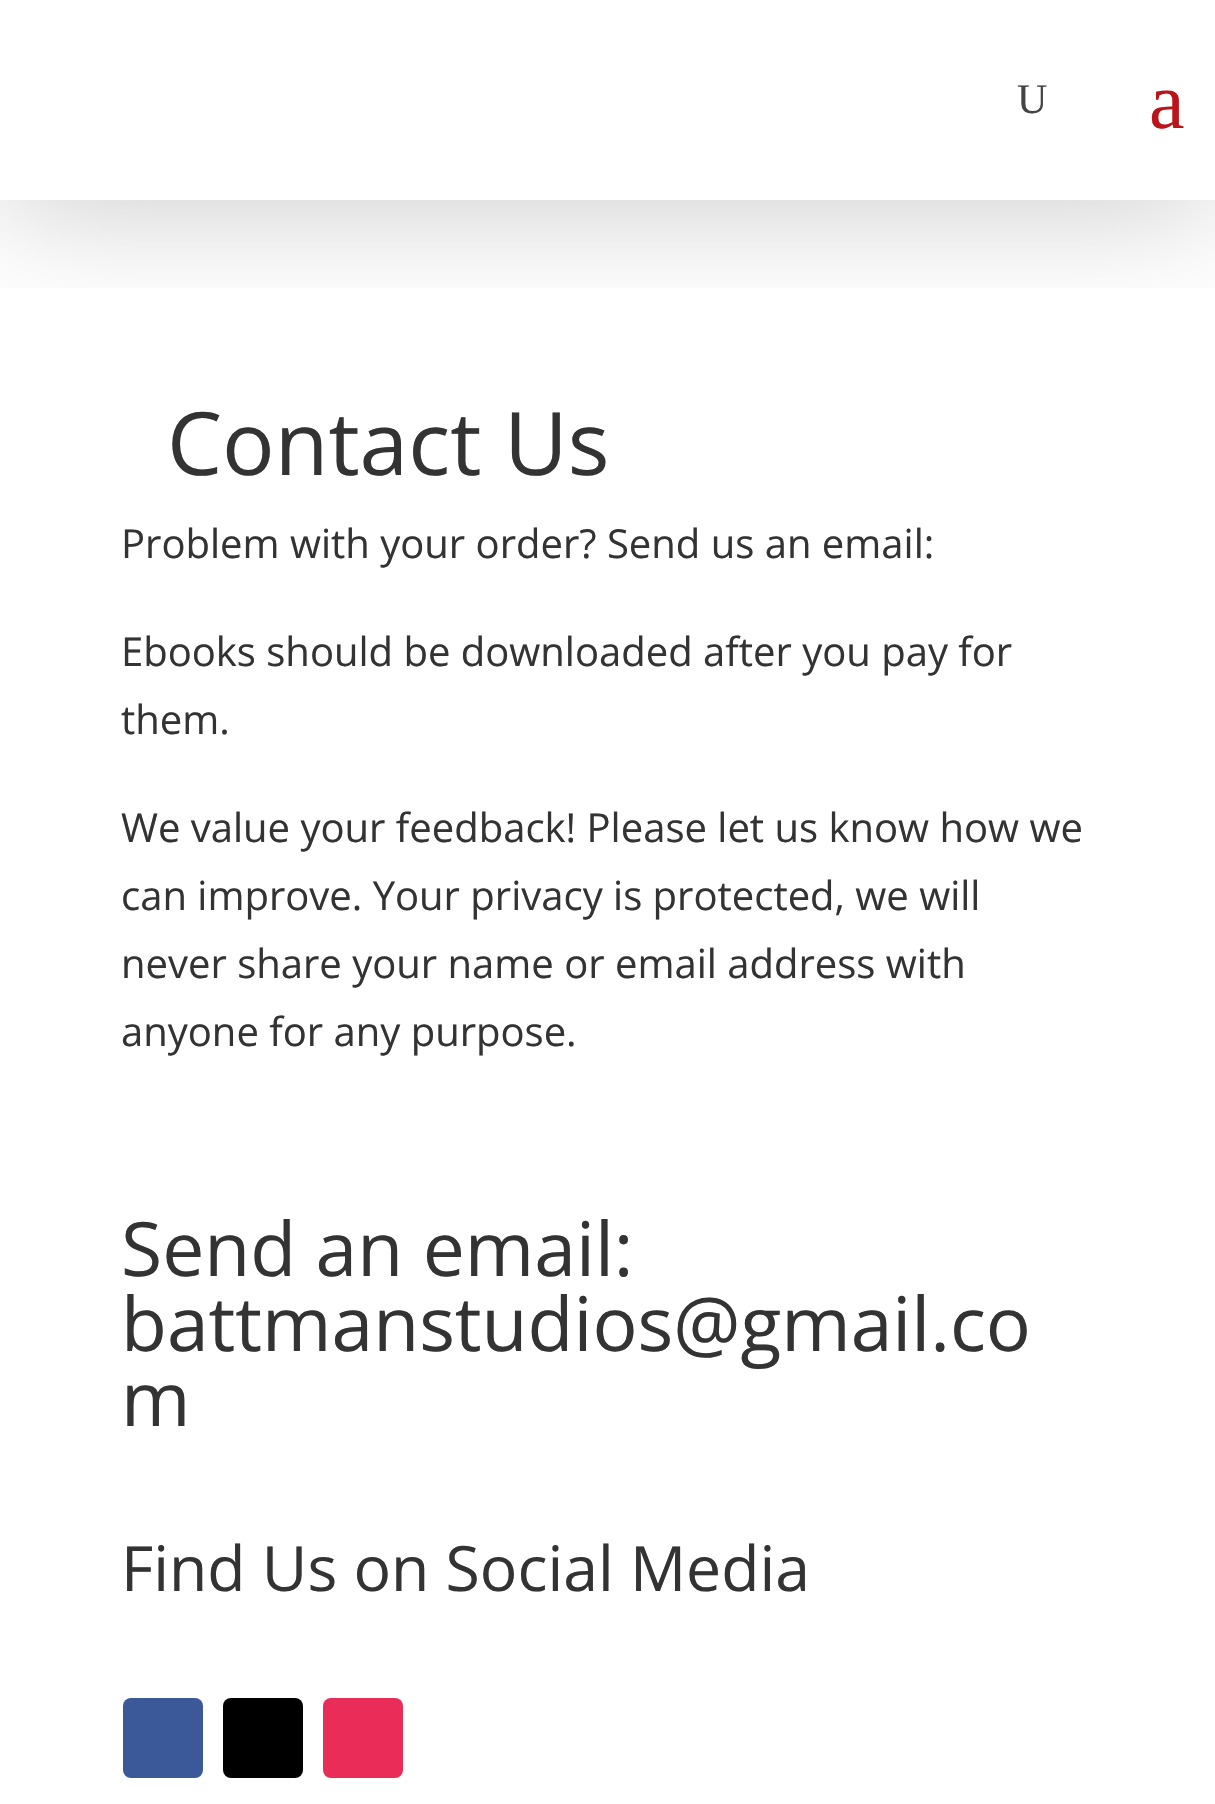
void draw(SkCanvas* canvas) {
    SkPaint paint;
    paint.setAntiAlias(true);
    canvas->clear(0xFFFFFFFF);
    canvas->save();
    canvas->clipRect(SkRect::MakeXYWH(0, 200, 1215, 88));
    paint.setColor(0x33000000);
    paint.setMaskFilter(SkMaskFilter::MakeBlur(kNormal_SkBlurStyle, 62.5f));
    canvas->drawRect(SkRect::MakeXYWH(0, 8, 1215, 200), paint);
    paint.setMaskFilter(nullptr);
    canvas->restore();
    SkFont font1(fontMgr->matchFamilyStyle("Liberation Serif", SkFontStyle::Normal()), 42);
    font1.setSubpixel(true);
    paint.setColor(0xFF444444);
    canvas->drawString("U", 1017, 113, font1, paint);
    SkFont font2(fontMgr->matchFamilyStyle("Liberation Serif", SkFontStyle::Normal()), 80);
    font2.setSubpixel(true);
    paint.setColor(0xFFBA131A);
    canvas->drawString("a", 1149, 128, font2, paint);
    SkFont font3(fontMgr->matchFamilyStyle("Open Sans", SkFontStyle::Normal()), 87.5f);
    font3.setSubpixel(true);
    paint.setColor(0xFF333333);
    canvas->drawString("Contact Us", 167, 475, font3, paint);
    SkFont font4(fontMgr->matchFamilyStyle("Open Sans", SkFontStyle::Normal()), 40);
    font4.setSubpixel(true);
    canvas->drawString("Problem with your order? Send us an email:", 121, 558, font4, paint);
    canvas->drawString("Ebooks should be downloaded after you pay for", 121, 666, font4, paint);
    canvas->drawString("them.", 121, 734, font4, paint);
    canvas->drawString("We value your feedback! Please let us know how we", 121, 842, font4, paint);
    canvas->drawString("can improve. Your privacy is protected, we will", 121, 910, font4, paint);
    canvas->drawString("never share your name or email address with", 121, 978, font4, paint);
    canvas->drawString("anyone for any purpose.", 121, 1046, font4, paint);
    SkFont font5(fontMgr->matchFamilyStyle("Open Sans", SkFontStyle::Normal()), 75);
    font5.setSubpixel(true);
    canvas->drawString("Send an email:", 121, 1276, font5, paint);
    canvas->drawString("battmanstudios@gmail.co", 121, 1351, font5, paint);
    canvas->drawString("m", 121, 1426, font5, paint);
    SkFont font6(fontMgr->matchFamilyStyle("Open Sans", SkFontStyle::Normal()), 62.5f);
    font6.setSubpixel(true);
    canvas->drawString("Find Us on Social Media", 121, 1591, font6, paint);
    paint.setColor(0xFF3B5998);
    canvas->drawRoundRect(SkRect::MakeXYWH(123, 1698, 80, 80), 8, 8, paint);
    paint.setColor(0xFF000000);
    canvas->drawRoundRect(SkRect::MakeXYWH(223, 1698, 80, 80), 8, 8, paint);
    paint.setColor(0xFFEA2C59);
    canvas->drawRoundRect(SkRect::MakeXYWH(323, 1698, 80, 80), 8, 8, paint);
}
